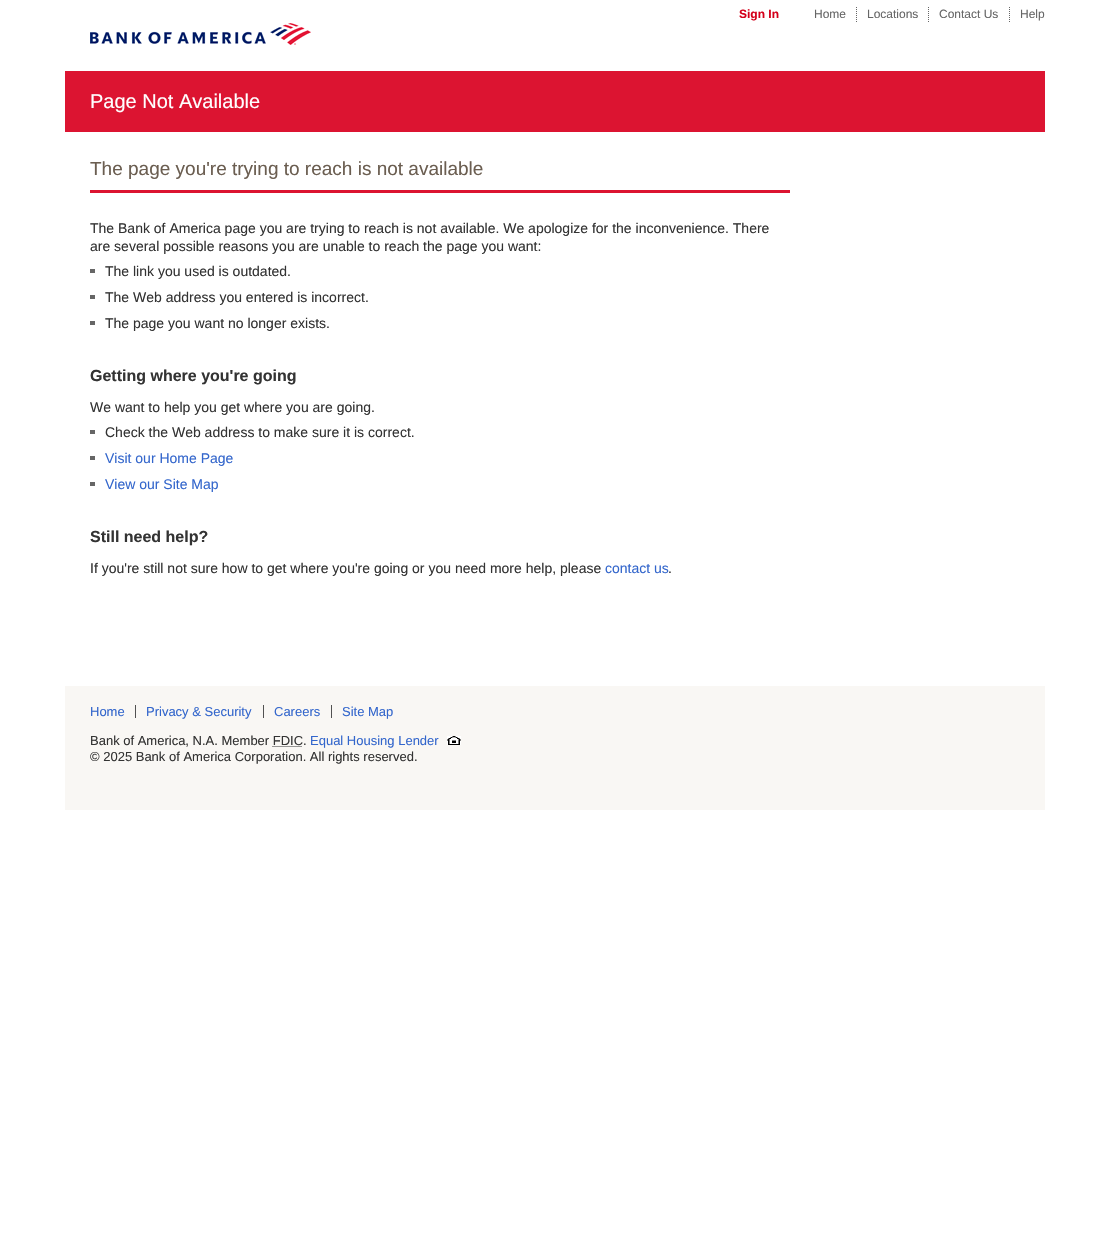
void draw(SkCanvas* canvas) {
    SkPaint paint;
    paint.setAntiAlias(true);
    canvas->clear(0xFFFFFFFF);
    SkFont font1(fontMgr->matchFamilyStyle("Liberation Sans", SkFontStyle::Bold()), 12);
    font1.setSubpixel(true);
    paint.setColor(0xFFD4001A);
    canvas->drawString("Sign In", 739, 18, font1, paint);
    paint.setStyle(SkPaint::kStroke_Style);
    paint.setStrokeWidth(1);
    paint.setColor(0xFF666666);
    paint.setPathEffect(SkDashPathEffect::Make({{1, 1}}, 0));
    canvas->drawPath(SkPathBuilder().moveTo(856.5f, 7).lineTo(856.5f, 22).detach(), paint);
    paint.setPathEffect(nullptr);
    SkFont font2(fontMgr->matchFamilyStyle("Liberation Sans", SkFontStyle::Normal()), 12);
    font2.setSubpixel(true);
    paint.setStyle(SkPaint::kFill_Style);
    canvas->drawString("Home", 814, 18, font2, paint);
    paint.setStyle(SkPaint::kStroke_Style);
    paint.setPathEffect(SkDashPathEffect::Make({{1, 1}}, 0));
    canvas->drawPath(SkPathBuilder().moveTo(928.5f, 7).lineTo(928.5f, 22).detach(), paint);
    paint.setPathEffect(nullptr);
    paint.setStyle(SkPaint::kFill_Style);
    canvas->drawString("Locations", 867, 18, font2, paint);
    paint.setStyle(SkPaint::kStroke_Style);
    paint.setPathEffect(SkDashPathEffect::Make({{1, 1}}, 0));
    canvas->drawPath(SkPathBuilder().moveTo(1009.5f, 7).lineTo(1009.5f, 22).detach(), paint);
    paint.setPathEffect(nullptr);
    paint.setStyle(SkPaint::kFill_Style);
    canvas->drawString("Contact Us", 939, 18, font2, paint);
    canvas->drawString("Help", 1020, 18, font2, paint);
    canvas->drawImageRect(SkImages::DeferredFromEncodedData(SkData::MakeFromFileName("img1.png")), SkRect::MakeXYWH(90, 23, 221, 22), SkSamplingOptions());
    paint.setColor(0xFFDC1431);
    canvas->drawRect(SkRect::MakeXYWH(65, 71, 980, 61), paint);
    SkFont font3(fontMgr->matchFamilyStyle("Liberation Sans", SkFontStyle::Normal()), 20);
    font3.setSubpixel(true);
    paint.setColor(0xFFFFFFFF);
    canvas->drawString("Page Not Available", 90, 108, font3, paint);
    paint.setColor(0xFFDC1431);
    canvas->drawRect(SkRect::MakeXYWH(90, 190, 700, 3), paint);
    SkFont font4(fontMgr->matchFamilyStyle("Liberation Sans", SkFontStyle::Normal()), 19);
    font4.setSubpixel(true);
    paint.setColor(0xFF6B5E51);
    canvas->drawString("The page you're trying to reach is not available", 90, 175, font4, paint);
    SkFont font5(fontMgr->matchFamilyStyle("Liberation Sans", SkFontStyle::Normal()), 14);
    font5.setSubpixel(true);
    paint.setColor(0xFF333333);
    canvas->drawString("The Bank of America page you are trying to reach is not available. We apologize for the inconvenience. There", 90, 233, font5, paint);
    canvas->drawString("are several possible reasons you are unable to reach the page you want:", 90, 251, font5, paint);
    paint.setColor(0xFF666666);
    canvas->drawRect(SkRect::MakeXYWH(90, 269, 5, 4), paint);
    paint.setColor(0xFF333333);
    canvas->drawString("The link you used is outdated.", 105, 276, font5, paint);
    paint.setColor(0xFF666666);
    canvas->drawRect(SkRect::MakeXYWH(90, 295, 5, 4), paint);
    paint.setColor(0xFF333333);
    canvas->drawString("The Web address you entered is incorrect.", 105, 302, font5, paint);
    paint.setColor(0xFF666666);
    canvas->drawRect(SkRect::MakeXYWH(90, 321, 5, 4), paint);
    paint.setColor(0xFF333333);
    canvas->drawString("The page you want no longer exists.", 105, 328, font5, paint);
    SkFont font6(fontMgr->matchFamilyStyle("Liberation Sans", SkFontStyle::Bold()), 16);
    font6.setSubpixel(true);
    canvas->drawString("Getting where you're going", 90, 381, font6, paint);
    canvas->drawString("We want to help you get where you are going.", 90, 412, font5, paint);
    paint.setColor(0xFF666666);
    canvas->drawRect(SkRect::MakeXYWH(90, 430, 5, 4), paint);
    paint.setColor(0xFF333333);
    canvas->drawString("Check the Web address to make sure it is correct.", 105, 437, font5, paint);
    paint.setColor(0xFF666666);
    canvas->drawRect(SkRect::MakeXYWH(90, 456, 5, 4), paint);
    paint.setColor(0xFF3366CC);
    canvas->drawString("Visit our Home Page", 105, 463, font5, paint);
    paint.setColor(0xFF666666);
    canvas->drawRect(SkRect::MakeXYWH(90, 482, 5, 4), paint);
    paint.setColor(0xFF3366CC);
    canvas->drawString("View our Site Map", 105, 489, font5, paint);
    paint.setColor(0xFF333333);
    canvas->drawString("Still need help?", 90, 542, font6, paint);
    canvas->drawString("If you're still not sure how to get where you're going or you need more help, please", 90, 573, font5, paint);
    paint.setColor(0xFF3366CC);
    canvas->drawString("contact us", 605, 573, font5, paint);
    paint.setColor(0xFF333333);
    canvas->drawString(".", 668, 573, font5, paint);
    paint.setColor(0xFFF9F7F4);
    canvas->drawRect(SkRect::MakeXYWH(65, 686, 980, 124), paint);
    paint.setColor(0xFF515151);
    canvas->drawRect(SkRect::MakeXYWH(135, 705, 1, 13), paint);
    SkFont font7(fontMgr->matchFamilyStyle("Liberation Sans", SkFontStyle::Normal()), 13);
    font7.setSubpixel(true);
    paint.setColor(0xFF3366CC);
    canvas->drawString("Home", 90, 716, font7, paint);
    paint.setColor(0xFF515151);
    canvas->drawRect(SkRect::MakeXYWH(263, 705, 1, 13), paint);
    paint.setColor(0xFF3366CC);
    canvas->drawString("Privacy & Security", 146, 716, font7, paint);
    paint.setColor(0xFF515151);
    canvas->drawRect(SkRect::MakeXYWH(331, 705, 1, 13), paint);
    paint.setColor(0xFF3366CC);
    canvas->drawString("Careers", 274, 716, font7, paint);
    canvas->drawString("Site Map", 342, 716, font7, paint);
    paint.setColor(0xFF333333);
    canvas->drawString("Bank of America, N.A. Member FDIC.", 90, 745, font7, paint);
    paint.setColor(0xFF3366CC);
    canvas->drawString("Equal Housing Lender", 310, 745, font7, paint);
    canvas->drawImageRect(SkImages::DeferredFromEncodedData(SkData::MakeFromFileName("img2.png")), SkRect::MakeXYWH(447, 736, 14, 9), SkSamplingOptions());
    paint.setStyle(SkPaint::kStroke_Style);
    paint.setColor(0xFF333333);
    paint.setPathEffect(SkDashPathEffect::Make({{1, 1}}, 0));
    canvas->drawPath(SkPathBuilder().moveTo(272.5f, 746.5f).lineTo(302.5f, 746.5f).detach(), paint);
    paint.setPathEffect(nullptr);
    paint.setStyle(SkPaint::kFill_Style);
    canvas->drawString("© 2025 Bank of America Corporation. All rights reserved.", 90, 761, font7, paint);
}
